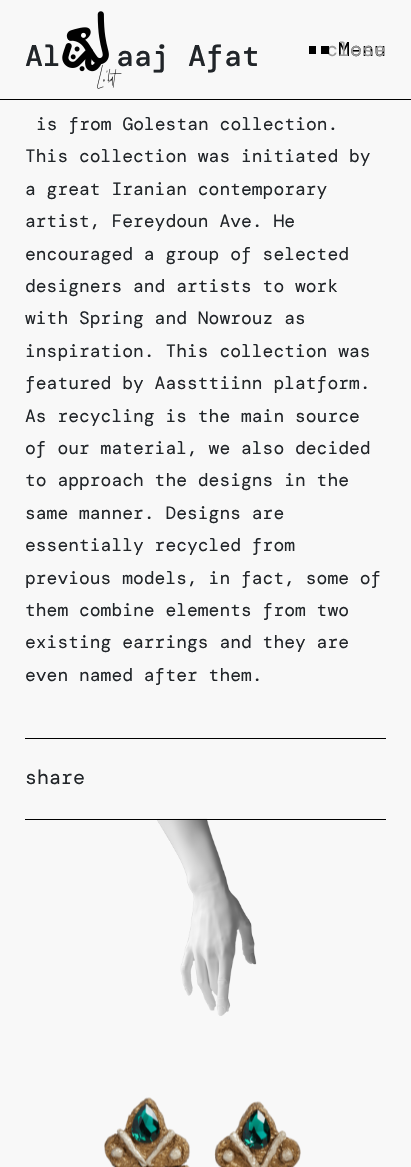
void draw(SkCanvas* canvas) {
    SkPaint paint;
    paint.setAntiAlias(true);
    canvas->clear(0xFFF8F8F8);
    SkFont font1(fontMgr->matchFamilyStyle("DM Mono", SkFontStyle(500, SkFontStyle::kNormal_Width, SkFontStyle::kUpright_Slant)), 30);
    font1.setSubpixel(true);
    paint.setColor(0xFF212529);
    canvas->drawString("aaj Afat", 116, 66, font1, paint);
    canvas->drawImageRect(SkImages::DeferredFromEncodedData(SkData::MakeFromFileName("img1.png")), SkRect::MakeXYWH(62, 11, 60, 78), SkSamplingOptions());
    paint.setColor(0xFF000000);
    canvas->drawRect(SkRect::MakeXYWH(309, 46, 7, 8), paint);
    SkFont font2(fontMgr->matchFamilyStyle("DM Mono", SkFontStyle::Normal()), 20);
    font2.setSubpixel(true);
    canvas->drawString("Menu", 338, 56, font2, paint);
    paint.setColor(0xFF9C9C9C);
    canvas->drawString("close", 326, 56, font2, paint);
    paint.setColor(0xFF000000);
    canvas->drawRect(SkRect::MakeXYWH(321, 46, 8, 8), paint);
    canvas->drawRect(SkRect::MakeXYWH(0, 99, 411, 1), paint);
    paint.setColor(0xFF212529);
    canvas->drawString("Al", 25, 66, font1, paint);
    paint.setColor(0xFF000000);
    canvas->drawRect(SkRect::MakeXYWH(25, 738, 361, 1), paint);
    SkFont font3(fontMgr->matchFamilyStyle("DM Mono", SkFontStyle::Normal()), 18);
    font3.setSubpixel(true);
    paint.setColor(0xFF212529);
    canvas->drawString("is from Golestan collection.", 36, 130, font3, paint);
    canvas->drawString("This collection was initiated by", 25, 162, font3, paint);
    canvas->drawString("a great Iranian contemporary", 25, 195, font3, paint);
    canvas->drawString("artist, Fereydoun Ave. He", 25, 227, font3, paint);
    canvas->drawString("encouraged a group of selected", 25, 260, font3, paint);
    canvas->drawString("designers and artists to work", 25, 292, font3, paint);
    canvas->drawString("with Spring and Nowrouz as", 25, 324, font3, paint);
    canvas->drawString("inspiration. This collection was", 25, 357, font3, paint);
    canvas->drawString("featured by Aassttiinn platform.", 25, 389, font3, paint);
    canvas->drawString("As recycling is the main source", 25, 422, font3, paint);
    canvas->drawString("of our material, we also decided", 25, 454, font3, paint);
    canvas->drawString("to approach the designs in the", 25, 486, font3, paint);
    canvas->drawString("same manner. Designs are", 25, 519, font3, paint);
    canvas->drawString("essentially recycled from", 25, 551, font3, paint);
    canvas->drawString("previous models, in fact, some of", 25, 584, font3, paint);
    canvas->drawString("them combine elements from two", 25, 616, font3, paint);
    canvas->drawString("existing earrings and they are", 25, 648, font3, paint);
    canvas->drawString("even named after them.", 25, 681, font3, paint);
    canvas->drawString("share", 25, 784, font2, paint);
    canvas->drawImageRect(SkImages::DeferredFromEncodedData(SkData::MakeFromFileName("img2.png")), SkRect::MakeXYWH(157, 818, 100, 198), SkSamplingOptions());
    paint.setColor(0xFF000000);
    canvas->drawRect(SkRect::MakeXYWH(25, 819, 361, 1), paint);
    canvas->drawImageRect(SkImages::DeferredFromEncodedData(SkData::MakeFromFileName("img3.png")), SkRect::MakeXYWH(104, 1097, 197, 70), SkSamplingOptions());
}
